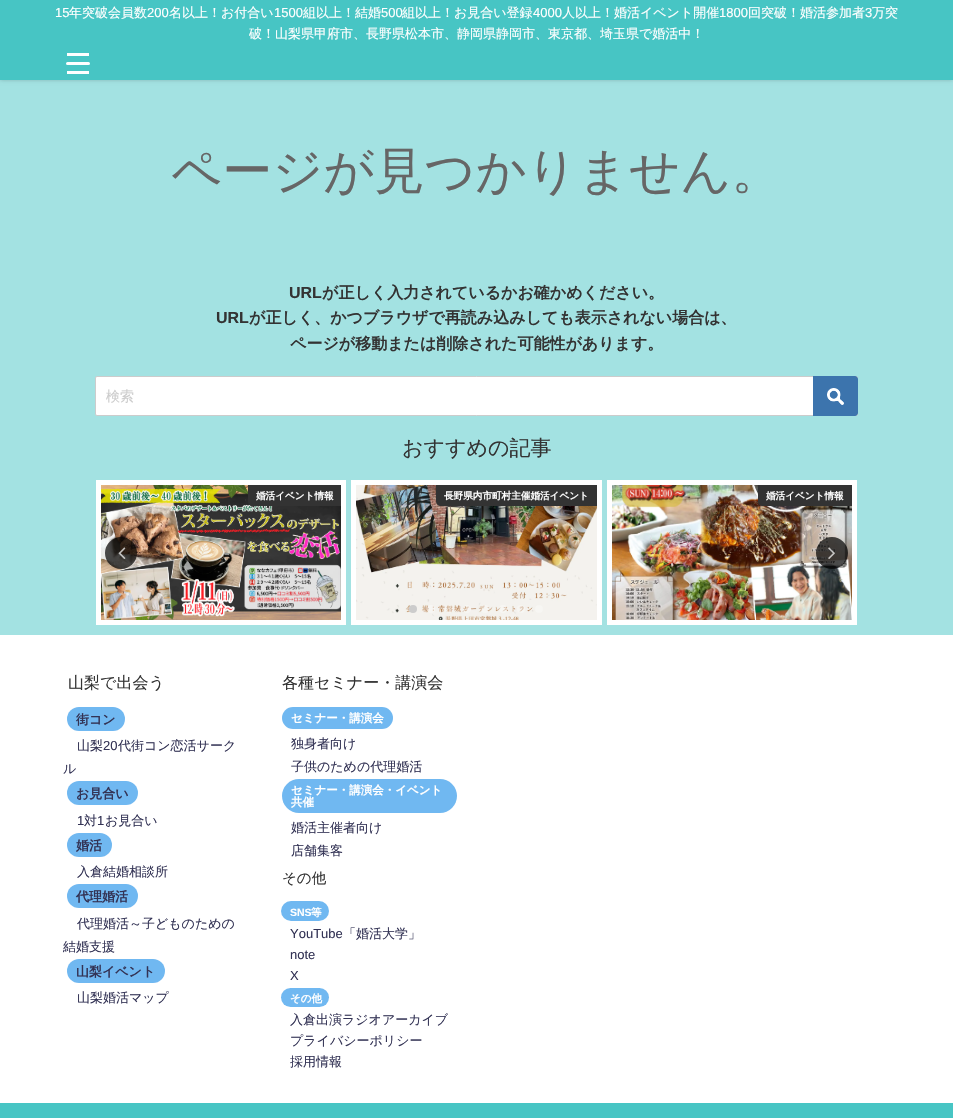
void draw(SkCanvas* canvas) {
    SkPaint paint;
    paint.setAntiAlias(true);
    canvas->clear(0xFFA3E2E2);
    paint.setColor(0x33000000);
    paint.setMaskFilter(SkMaskFilter::MakeBlur(kNormal_SkBlurStyle, 2));
    canvas->drawRect(SkRect::MakeXYWH(0, 0, 953, 80), paint);
    paint.setMaskFilter(nullptr);
    paint.setColor(0xFF47C5C4);
    canvas->drawRect(SkRect::MakeXYWH(0, 0, 953, 80), paint);
    SkFont font1(fontMgr->matchFamilyStyle("Liberation Sans", SkFontStyle::Normal()), 13);
    font1.setSubpixel(true);
    paint.setColor(0xFFFFFFFF);
    canvas->drawString("15", 55, 17, font1, paint);
    SkFont font2(fontMgr->matchFamilyStyle("WenQuanYi Zen Hei", SkFontStyle(500, SkFontStyle::kNormal_Width, SkFontStyle::kUpright_Slant)), 13);
    font2.setSubpixel(true);
    canvas->drawString("年突破会員数", 69, 17, font2, paint);
    canvas->drawString("200", 147, 17, font1, paint);
    canvas->drawString("名以上！お付合い", 169, 17, font2, paint);
    canvas->drawString("1500", 274, 17, font1, paint);
    canvas->drawString("組以上！結婚", 303, 17, font2, paint);
    canvas->drawString("500", 381, 17, font1, paint);
    canvas->drawString("組以上！お見合い登録", 402, 17, font2, paint);
    canvas->drawString("4000", 533, 17, font1, paint);
    canvas->drawString("人以上！婚活イベント開催", 562, 17, font2, paint);
    canvas->drawString("1800", 719, 17, font1, paint);
    canvas->drawString("回突破！婚活参加者", 748, 17, font2, paint);
    canvas->drawString("3", 865, 17, font1, paint);
    canvas->drawString("万突", 872, 17, font2, paint);
    canvas->drawString("破！山梨県甲府市、長野県松本市、静岡県静岡市、東京都、埼玉県で婚活中！", 249, 38, font2, paint);
    canvas->drawRect(SkRect::MakeXYWH(67, 53, 22, 3), paint);
    canvas->drawRoundRect(SkRect::MakeXYWH(66, 62, 24, 3), 1.5f, 1.5f, paint);
    canvas->drawRect(SkRect::MakeXYWH(67, 71, 22, 3), paint);
    SkFont font3(fontMgr->matchFamilyStyle("WenQuanYi Zen Hei", SkFontStyle(500, SkFontStyle::kNormal_Width, SkFontStyle::kUpright_Slant)), 50);
    font3.setSubpixel(true);
    paint.setColor(0xFF666666);
    canvas->drawString("ページが見つかりません。", 171, 188, font3, paint);
    SkFont font4(fontMgr->matchFamilyStyle("Liberation Sans", SkFontStyle::Bold()), 16);
    font4.setSubpixel(true);
    paint.setColor(0xFF333333);
    canvas->drawString("URL", 289, 298, font4, paint);
    SkFont font5(fontMgr->matchFamilyStyle("WenQuanYi Zen Hei", SkFontStyle::Bold()), 16);
    font5.setSubpixel(true);
    canvas->drawString("が正しく入力されているかお確かめください。", 322, 298, font5, paint);
    canvas->drawString("URL", 216, 323, font4, paint);
    canvas->drawString("が正しく、かつブラウザで再読み込みしても表示されない場合は、", 249, 323, font5, paint);
    canvas->drawString("ページが移動または削除された可能性があります。", 290, 349, font5, paint);
    paint.setColor(0xFFFFFFFF);
    canvas->drawRoundRect(SkRect::MakeXYWH(95.5f, 376.5f, 762, 39), 1.5f, 1.5f, paint);
    paint.setStyle(SkPaint::kStroke_Style);
    paint.setStrokeWidth(1);
    paint.setColor(0xFFCCCCCC);
    canvas->drawRoundRect(SkRect::MakeXYWH(95.5f, 376.5f, 762, 39), 1.5f, 1.5f, paint);
    SkFont font6(fontMgr->matchFamilyStyle("WenQuanYi Zen Hei", SkFontStyle(500, SkFontStyle::kNormal_Width, SkFontStyle::kUpright_Slant)), 14);
    font6.setSubpixel(true);
    paint.setStyle(SkPaint::kFill_Style);
    canvas->drawString("検索", 106, 401, font6, paint);
    paint.setColor(0xFF3C74AD);
    canvas->drawPath(SkPathBuilder().moveTo(813, 376).lineTo(855, 376).cubicTo(856.5f, 376, 858, 377.5f, 858, 379).lineTo(858, 413).cubicTo(858, 414.5f, 856.5f, 416, 855, 416).lineTo(813, 416).close().detach(), paint);
    canvas->drawImageRect(SkImages::DeferredFromEncodedData(SkData::MakeFromFileName("img1.png")), SkRect::MakeXYWH(827, 388, 17, 17), SkSamplingOptions());
    SkFont font7(fontMgr->matchFamilyStyle("WenQuanYi Zen Hei", SkFontStyle(500, SkFontStyle::kNormal_Width, SkFontStyle::kUpright_Slant)), 21);
    font7.setSubpixel(true);
    paint.setColor(0xFF333333);
    canvas->drawString("おすすめの記事", 402, 455, font7, paint);
    paint.setColor(0xFFFFFFFF);
    canvas->drawRect(SkRect::MakeXYWH(96, 480, 250, 145), paint);
    canvas->drawImageRect(SkImages::DeferredFromEncodedData(SkData::MakeFromFileName("img2.png")), SkRect::MakeXYWH(101, 485, 240, 135), SkSamplingOptions());
    paint.setColor(0xFF333333);
    canvas->drawPath(SkPathBuilder().moveTo(248, 485).lineTo(341, 485).lineTo(341, 506).lineTo(253, 506).cubicTo(250, 506, 248, 504, 248, 501).close().detach(), paint);
    SkFont font8(fontMgr->matchFamilyStyle("WenQuanYi Zen Hei", SkFontStyle::Bold()), 9.6f);
    font8.setSubpixel(true);
    paint.setColor(0xFFFFFFFF);
    canvas->drawString("婚活イベント情報", 256, 499, font8, paint);
    canvas->drawRect(SkRect::MakeXYWH(351, 480, 251, 145), paint);
    canvas->drawImageRect(SkImages::DeferredFromEncodedData(SkData::MakeFromFileName("img3.png")), SkRect::MakeXYWH(356, 485, 241, 135), SkSamplingOptions());
    paint.setColor(0xFF333333);
    canvas->drawPath(SkPathBuilder().moveTo(436, 485).lineTo(597, 485).lineTo(597, 506).lineTo(441, 506).cubicTo(438, 506, 436, 504, 436, 501).close().detach(), paint);
    paint.setColor(0xFFFFFFFF);
    canvas->drawString("長野県内市町村主催婚活イベント", 444, 499, font8, paint);
    canvas->drawRect(SkRect::MakeXYWH(607, 480, 250, 145), paint);
    canvas->drawImageRect(SkImages::DeferredFromEncodedData(SkData::MakeFromFileName("img4.png")), SkRect::MakeXYWH(612, 485, 240, 135), SkSamplingOptions());
    paint.setColor(0xFF333333);
    canvas->drawPath(SkPathBuilder().moveTo(758, 485).lineTo(852, 485).lineTo(852, 506).lineTo(763, 506).cubicTo(760, 506, 758, 504, 758, 501).close().detach(), paint);
    paint.setColor(0xFFFFFFFF);
    canvas->drawString("婚活イベント情報", 766, 499, font8, paint);
    paint.setColor(0xB3000000);
    canvas->drawCircle(121, 553, 16, paint);
    canvas->drawImageRect(SkImages::DeferredFromEncodedData(SkData::MakeFromFileName("img5.png")), SkRect::MakeXYWH(118, 547, 8, 12), SkSamplingOptions());
    canvas->drawCircle(832, 553, 16, paint);
    canvas->drawImageRect(SkImages::DeferredFromEncodedData(SkData::MakeFromFileName("img6.png")), SkRect::MakeXYWH(828, 547, 7, 12), SkSamplingOptions());
    paint.setColor(0xFFCCCCCC);
    canvas->drawCircle(413, 609, 4, paint);
    paint.setColor(0x4DFFFFFF);
    canvas->drawCircle(431, 609, 4, paint);
    canvas->drawCircle(449, 609, 4, paint);
    canvas->drawCircle(467, 609, 4, paint);
    canvas->drawCircle(485, 609, 4, paint);
    canvas->drawCircle(503, 609, 4, paint);
    canvas->drawCircle(521, 609, 4, paint);
    paint.setColor(0xFFF7F6F3);
    canvas->drawCircle(539, 609, 4, paint);
    paint.setColor(0xFFFFFFFF);
    canvas->drawRect(SkRect::MakeXYWH(0, 635, 953, 468), paint);
    SkFont font9(fontMgr->matchFamilyStyle("WenQuanYi Zen Hei", SkFontStyle(500, SkFontStyle::kNormal_Width, SkFontStyle::kUpright_Slant)), 16);
    font9.setSubpixel(true);
    paint.setColor(0xFF333333);
    canvas->drawString("山梨で出会う", 68, 688, font9, paint);
    paint.setColor(0xFF70B8F1);
    canvas->drawRoundRect(SkRect::MakeXYWH(67, 707, 58, 24), 12, 12, paint);
    SkFont font10(fontMgr->matchFamilyStyle("WenQuanYi Zen Hei", SkFontStyle::Bold()), 13);
    font10.setSubpixel(true);
    paint.setColor(0xFF333355);
    canvas->drawString("街コン", 76, 724, font10, paint);
    canvas->drawString("山梨", 77, 750, font2, paint);
    canvas->drawString("20", 103, 750, font1, paint);
    canvas->drawString("代街コン恋活サーク", 118, 750, font2, paint);
    canvas->drawString("ル", 63, 773, font2, paint);
    paint.setColor(0xFF70B8F1);
    canvas->drawRoundRect(SkRect::MakeXYWH(67, 781, 71, 24), 12, 12, paint);
    paint.setColor(0xFF333355);
    canvas->drawString("お見合い", 76, 798, font10, paint);
    canvas->drawString("1", 77, 825, font1, paint);
    canvas->drawString("対", 84, 825, font2, paint);
    canvas->drawString("1", 97, 825, font1, paint);
    canvas->drawString("お見合い", 105, 825, font2, paint);
    paint.setColor(0xFF70B8F1);
    canvas->drawRoundRect(SkRect::MakeXYWH(67, 833, 45, 24), 12, 12, paint);
    paint.setColor(0xFF333355);
    canvas->drawString("婚活", 76, 850, font10, paint);
    canvas->drawString("入倉結婚相談所", 77, 876, font2, paint);
    paint.setColor(0xFF70B8F1);
    canvas->drawRoundRect(SkRect::MakeXYWH(67, 884, 71, 24), 12, 12, paint);
    paint.setColor(0xFF333355);
    canvas->drawString("代理婚活", 76, 901, font10, paint);
    canvas->drawString("代理婚活～子どものための", 77, 928, font2, paint);
    canvas->drawString("結婚支援", 63, 951, font2, paint);
    paint.setColor(0xFF70B8F1);
    canvas->drawRoundRect(SkRect::MakeXYWH(67, 959, 98, 24), 12, 12, paint);
    paint.setColor(0xFF333355);
    canvas->drawString("山梨イベント", 76, 976, font10, paint);
    canvas->drawString("山梨婚活マップ", 77, 1002, font2, paint);
    paint.setColor(0xFF333333);
    canvas->drawString("各種セミナー・講演会", 282, 688, font9, paint);
    paint.setColor(0xFF70B8F1);
    canvas->drawRoundRect(SkRect::MakeXYWH(282, 707, 111, 22), 11, 11, paint);
    SkFont font11(fontMgr->matchFamilyStyle("WenQuanYi Zen Hei", SkFontStyle::Bold()), 11.5f);
    font11.setSubpixel(true);
    paint.setColor(0xFFFFFFFF);
    canvas->drawString("セミナー・講演会", 291, 722, font11, paint);
    paint.setColor(0xFF333355);
    canvas->drawString("独身者向け", 291, 748, font2, paint);
    canvas->drawString("子供のための代理婚活", 291, 771, font2, paint);
    paint.setColor(0xFF70B8F1);
    canvas->drawRoundRect(SkRect::MakeXYWH(282, 779, 175, 34), 17, 17, paint);
    paint.setColor(0xFFFFFFFF);
    canvas->drawString("セミナー・講演会・イベント", 291, 794, font11, paint);
    canvas->drawString("共催", 291, 806, font11, paint);
    paint.setColor(0xFF333355);
    canvas->drawString("婚活主催者向け", 291, 832, font2, paint);
    canvas->drawString("店舗集客", 291, 855, font2, paint);
    SkFont font12(fontMgr->matchFamilyStyle("WenQuanYi Zen Hei", SkFontStyle(500, SkFontStyle::kNormal_Width, SkFontStyle::kUpright_Slant)), 14.5f);
    font12.setSubpixel(true);
    paint.setColor(0xFF333333);
    canvas->drawString("その他", 282, 883, font12, paint);
    paint.setColor(0xFF70B8F1);
    canvas->drawRoundRect(SkRect::MakeXYWH(281, 901, 48, 20), 10, 10, paint);
    SkFont font13(fontMgr->matchFamilyStyle("Liberation Sans", SkFontStyle::Bold()), 10.5f);
    font13.setSubpixel(true);
    paint.setColor(0xFFFFFFFF);
    canvas->drawString("SNS", 290, 916, font13, paint);
    SkFont font14(fontMgr->matchFamilyStyle("WenQuanYi Zen Hei", SkFontStyle::Bold()), 10.5f);
    font14.setSubpixel(true);
    canvas->drawString("等", 311, 916, font14, paint);
    paint.setColor(0xFF333355);
    canvas->drawString("YouTube", 290, 938, font1, paint);
    canvas->drawString("「婚活大学」", 343, 938, font2, paint);
    canvas->drawString("note", 290, 959, font1, paint);
    canvas->drawString("X", 290, 980, font1, paint);
    paint.setColor(0xFF70B8F1);
    canvas->drawRoundRect(SkRect::MakeXYWH(281, 988, 48, 19), 9.5f, 9.5f, paint);
    paint.setColor(0xFFFFFFFF);
    canvas->drawString("その他", 290, 1002, font14, paint);
    paint.setColor(0xFF333355);
    canvas->drawString("入倉出演ラジオアーカイブ", 290, 1024, font2, paint);
    canvas->drawString("プライバシーポリシー", 290, 1045, font2, paint);
    canvas->drawString("採用情報", 290, 1066, font2, paint);
    paint.setColor(0xFF47C5C4);
    canvas->drawRect(SkRect::MakeXYWH(0, 1103, 953, 15), paint);
}
